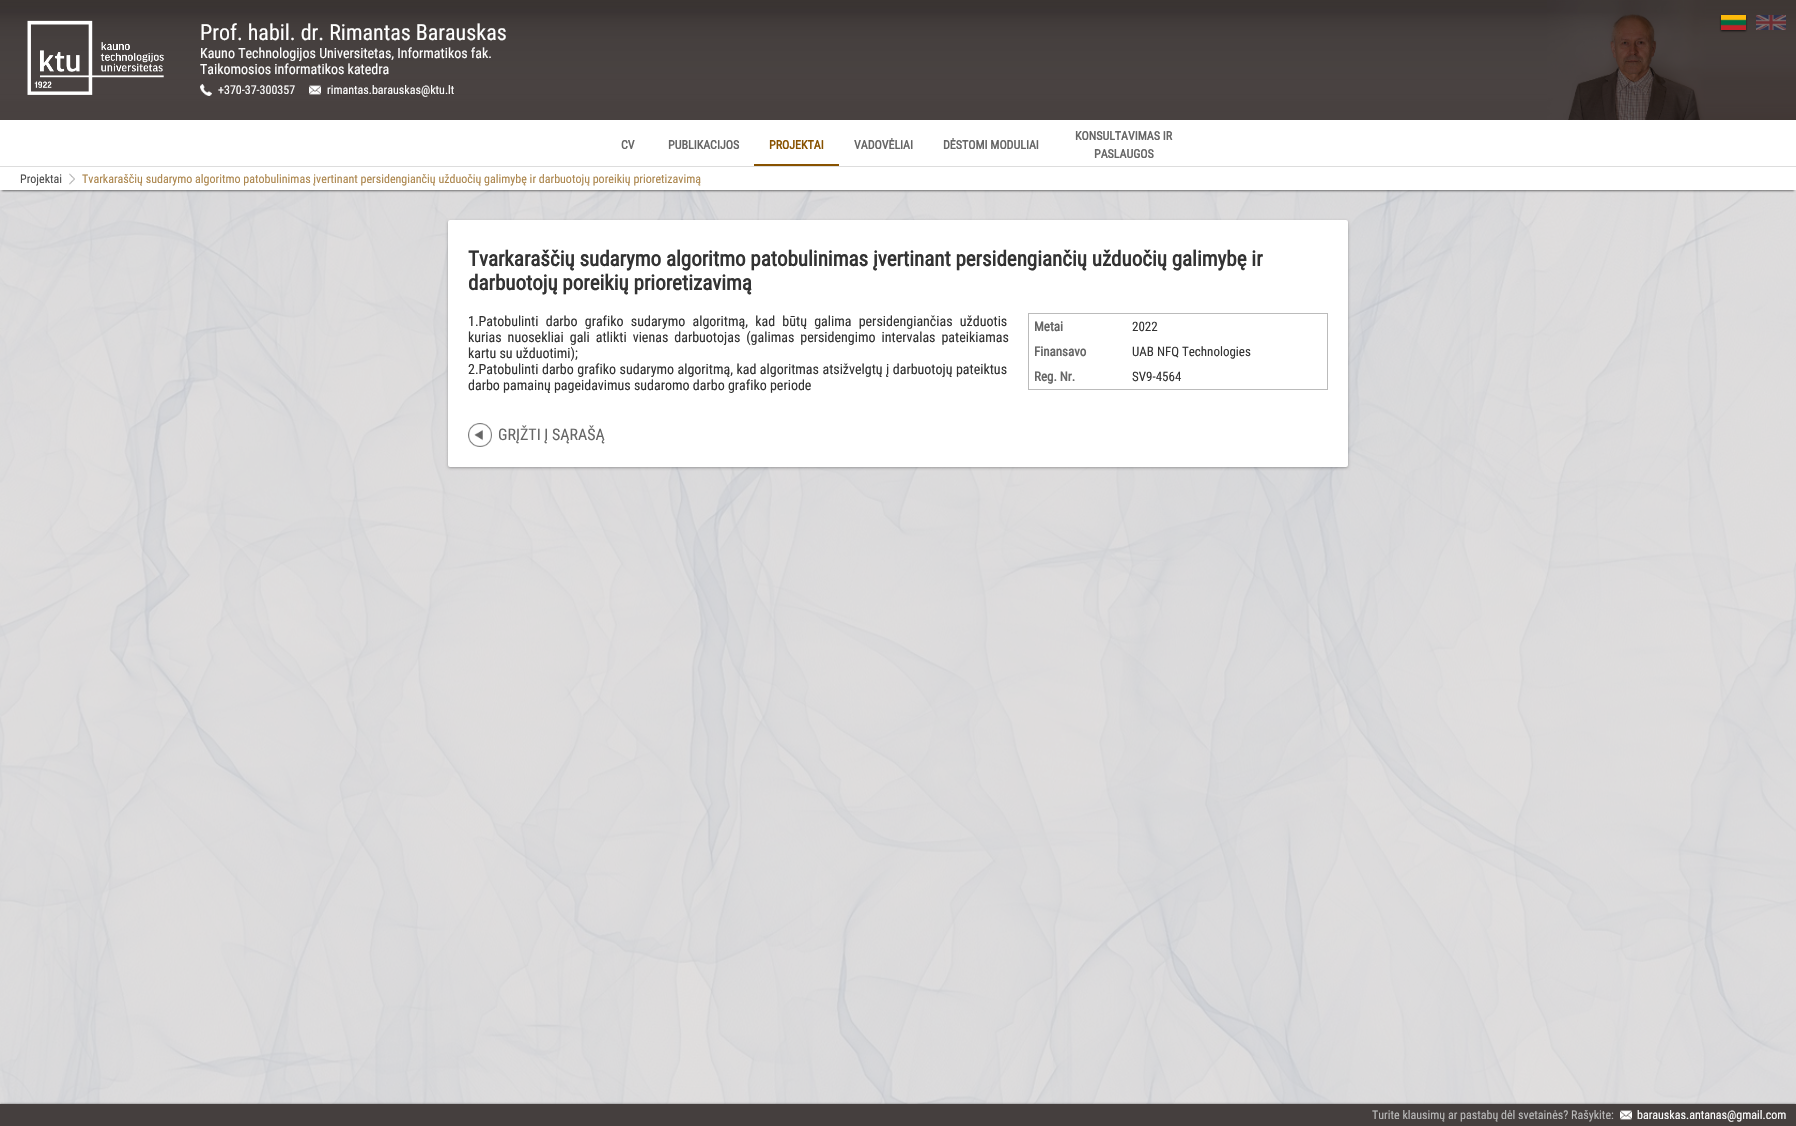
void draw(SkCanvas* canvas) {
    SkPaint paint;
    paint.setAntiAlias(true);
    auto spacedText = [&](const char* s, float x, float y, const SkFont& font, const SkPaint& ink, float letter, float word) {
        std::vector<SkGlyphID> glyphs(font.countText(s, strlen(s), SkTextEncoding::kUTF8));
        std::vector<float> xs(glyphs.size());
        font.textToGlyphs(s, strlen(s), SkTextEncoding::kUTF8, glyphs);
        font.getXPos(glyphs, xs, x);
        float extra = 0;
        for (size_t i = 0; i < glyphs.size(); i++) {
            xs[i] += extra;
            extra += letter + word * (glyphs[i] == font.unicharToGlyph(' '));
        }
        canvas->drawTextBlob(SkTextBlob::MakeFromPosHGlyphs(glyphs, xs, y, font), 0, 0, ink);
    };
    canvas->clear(0xFFFFFFFF);
    canvas->drawImageRect(SkImages::DeferredFromEncodedData(SkData::MakeFromFileName("img1.png")), SkRect::MakeXYWH(0, 0, 1547, 120), SkSamplingOptions());
    canvas->drawImageRect(SkImages::DeferredFromEncodedData(SkData::MakeFromFileName("img2.png")), SkRect::MakeXYWH(27, 20, 137, 75), SkSamplingOptions());
    SkFont font1(fontMgr->matchFamilyStyle("Roboto Condensed", SkFontStyle::Normal()), 22);
    font1.setSubpixel(true);
    paint.setColor(0xFFFFFFFF);
    canvas->drawString("Prof. habil. dr. Rimantas Barauskas", 200, 40, font1, paint);
    SkFont font2(fontMgr->matchFamilyStyle("Roboto Condensed", SkFontStyle::Normal()), 14);
    font2.setSubpixel(true);
    canvas->drawString("Kauno Technologijos Universitetas, Informatikos fak.", 200, 58, font2, paint);
    canvas->drawString("Taikomosios informatikos katedra", 200, 74, font2, paint);
    canvas->drawImageRect(SkImages::DeferredFromEncodedData(SkData::MakeFromFileName("img3.png")), SkRect::MakeXYWH(200, 84, 12, 12), SkSamplingOptions());
    SkFont font3(fontMgr->matchFamilyStyle("Roboto Condensed", SkFontStyle::Normal()), 12);
    font3.setSubpixel(true);
    canvas->drawString("+370-37-300357", 218, 94, font3, paint);
    canvas->drawImageRect(SkImages::DeferredFromEncodedData(SkData::MakeFromFileName("img4.png")), SkRect::MakeXYWH(309, 85, 12, 10), SkSamplingOptions());
    canvas->drawString("rimantas.barauskas@ktu.lt", 327, 94, font3, paint);
    canvas->drawImageRect(SkImages::DeferredFromEncodedData(SkData::MakeFromFileName("img5.png")), SkRect::MakeXYWH(1547, 0, 159, 120), SkSamplingOptions());
    canvas->drawImageRect(SkImages::DeferredFromEncodedData(SkData::MakeFromFileName("img6.png")), SkRect::MakeXYWH(1706, 0, 90, 120), SkSamplingOptions());
    paint.setColor(0xB3000000);
    paint.setMaskFilter(SkMaskFilter::MakeBlur(kNormal_SkBlurStyle, 1));
    canvas->drawRect(SkRect::MakeXYWH(1721, 16, 25, 15), paint);
    paint.setMaskFilter(nullptr);
    canvas->drawImageRect(SkImages::DeferredFromEncodedData(SkData::MakeFromFileName("img7.png")), SkRect::MakeXYWH(1721, 15, 25, 15), SkSamplingOptions());
    canvas->drawImageRect(SkImages::DeferredFromEncodedData(SkData::MakeFromFileName("img8.png")), SkRect::MakeXYWH(1756, 15, 30, 15), SkSamplingOptions());
    SkFont font4(fontMgr->matchFamilyStyle("Roboto Condensed", SkFontStyle::Bold()), 12);
    font4.setSubpixel(true);
    paint.setColor(0xFF666666);
    canvas->drawString("CV", 621, 149, font4, paint);
    canvas->drawString("PUBLIKACIJOS", 668, 149, font4, paint);
    paint.setColor(0xFF885200);
    canvas->drawRect(SkRect::MakeXYWH(754, 164, 85, 2), paint);
    canvas->drawString("PROJEKTAI", 769, 149, font4, paint);
    paint.setColor(0xFF666666);
    canvas->drawString("VADOVĖLIAI", 854, 149, font4, paint);
    canvas->drawString("DĖSTOMI MODULIAI", 943, 149, font4, paint);
    canvas->drawString("KONSULTAVIMAS IR", 1075, 140, font4, paint);
    canvas->drawString("PASLAUGOS", 1094, 158, font4, paint);
    canvas->drawImageRect(SkImages::DeferredFromEncodedData(SkData::MakeFromFileName("img10.png")), SkRect::MakeXYWH(0, 190, 1796, 914), SkSamplingOptions());
    canvas->save();
    canvas->clipRect(SkRect::MakeXYWH(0, 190, 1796, 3));
    paint.setColor(0x80000000);
    paint.setMaskFilter(SkMaskFilter::MakeBlur(kNormal_SkBlurStyle, 1));
    canvas->drawRect(SkRect::MakeXYWH(2, 171, 1792, 20), paint);
    paint.setMaskFilter(nullptr);
    canvas->restore();
    paint.setColor(0xFFDDDDDD);
    canvas->drawRect(SkRect::MakeXYWH(0, 166, 1796, 1), paint);
    paint.setColor(0xFF4D4D4D);
    canvas->drawString("Projektai", 20, 183, font3, paint);
    canvas->drawImageRect(SkImages::DeferredFromEncodedData(SkData::MakeFromFileName("img9.png")), SkRect::MakeXYWH(69, 173, 6, 12), SkSamplingOptions());
    paint.setColor(0xFFAC864D);
    canvas->drawString("Tvarkaraščių sudarymo algoritmo patobulinimas įvertinant persidengiančių užduočių galimybę ir darbuotojų poreikių prioretizavimą", 82, 183, font3, paint);
    paint.setColor(0x4D000000);
    paint.setMaskFilter(SkMaskFilter::MakeBlur(kNormal_SkBlurStyle, 1.5f));
    canvas->drawRoundRect(SkRect::MakeXYWH(448, 221, 900, 247), 2, 2, paint);
    paint.setMaskFilter(nullptr);
    paint.setColor(0xFFFFFFFF);
    canvas->drawRoundRect(SkRect::MakeXYWH(448, 220, 900, 247), 2, 2, paint);
    SkFont font5(fontMgr->matchFamilyStyle("Roboto Condensed", SkFontStyle::Bold()), 21);
    font5.setSubpixel(true);
    paint.setColor(0xFF333333);
    canvas->drawString("Tvarkaraščių sudarymo algoritmo patobulinimas įvertinant persidengiančių užduočių galimybę ir", 468, 266, font5, paint);
    canvas->drawString("darbuotojų poreikių prioretizavimą", 468, 290, font5, paint);
    spacedText("1.Patobulinti darbo grafiko sudarymo algoritmą, kad būtų galima persidengiančias užduotis", 468, 326, font2, paint, 0, 4);
    spacedText("kurias nuosekliai gali atlikti vienas darbuotojas (galimas persidengimo intervalas pateikiamas", 468, 342, font2, paint, 0, 2.75f);
    canvas->drawString("kartu su užduotimi);", 468, 358, font2, paint);
    spacedText("2.Patobulinti darbo grafiko sudarymo algoritmą, kad algoritmas atsižvelgtų į darbuotojų pateiktus", 468, 374, font2, paint, 0, 0.25f);
    canvas->drawString("darbo pamainų pageidavimus sudaromo darbo grafiko periode", 468, 390, font2, paint);
    paint.setColor(0xFFBBBBBB);
    canvas->drawRect(SkRect::MakeXYWH(1028, 313, 300, 1), paint);
    canvas->drawRect(SkRect::MakeXYWH(1327, 313, 1, 77), paint);
    canvas->drawRect(SkRect::MakeXYWH(1028, 389, 300, 1), paint);
    canvas->drawRect(SkRect::MakeXYWH(1028, 313, 1, 77), paint);
    SkFont font6(fontMgr->matchFamilyStyle("Roboto Condensed", SkFontStyle::Bold()), 13);
    font6.setSubpixel(true);
    paint.setColor(0xFF666666);
    canvas->drawString("Metai", 1034, 331, font6, paint);
    SkFont font7(fontMgr->matchFamilyStyle("Roboto Condensed", SkFontStyle::Normal()), 13);
    font7.setSubpixel(true);
    paint.setColor(0xFF333333);
    canvas->drawString("2022", 1132, 331, font7, paint);
    paint.setColor(0xFF666666);
    canvas->drawString("Finansavo", 1034, 356, font6, paint);
    paint.setColor(0xFF333333);
    canvas->drawString("UAB NFQ Technologies", 1132, 356, font7, paint);
    paint.setColor(0xFF666666);
    canvas->drawString("Reg. Nr.", 1034, 381, font6, paint);
    paint.setColor(0xFF333333);
    canvas->drawString("SV9-4564", 1132, 381, font7, paint);
    canvas->drawImageRect(SkImages::DeferredFromEncodedData(SkData::MakeFromFileName("img11.png")), SkRect::MakeXYWH(468, 423, 24, 24), SkSamplingOptions());
    SkFont font8(fontMgr->matchFamilyStyle("Roboto Condensed", SkFontStyle::Normal()), 16);
    font8.setSubpixel(true);
    paint.setColor(0xFF666666);
    canvas->drawString("GRĮŽTI Į SĄRAŠĄ", 498, 440, font8, paint);
    paint.setColor(0x80000000);
    paint.setMaskFilter(SkMaskFilter::MakeBlur(kNormal_SkBlurStyle, 1));
    canvas->drawRect(SkRect::MakeXYWH(0, 1104, 1796, 22), paint);
    paint.setMaskFilter(nullptr);
    paint.setColor(0xFF453F3E);
    canvas->drawRect(SkRect::MakeXYWH(0, 1104, 1796, 22), paint);
    paint.setColor(0xFFBBBBBB);
    canvas->drawString("Turite klausimų ar pastabų dėl svetainės? Rašykite:", 1372, 1119, font3, paint);
    canvas->drawImageRect(SkImages::DeferredFromEncodedData(SkData::MakeFromFileName("img12.png")), SkRect::MakeXYWH(1620, 1110, 12, 10), SkSamplingOptions());
    paint.setColor(0xFFFFFFFF);
    canvas->drawString("barauskas.antanas@gmail.com", 1637, 1119, font3, paint);
}
